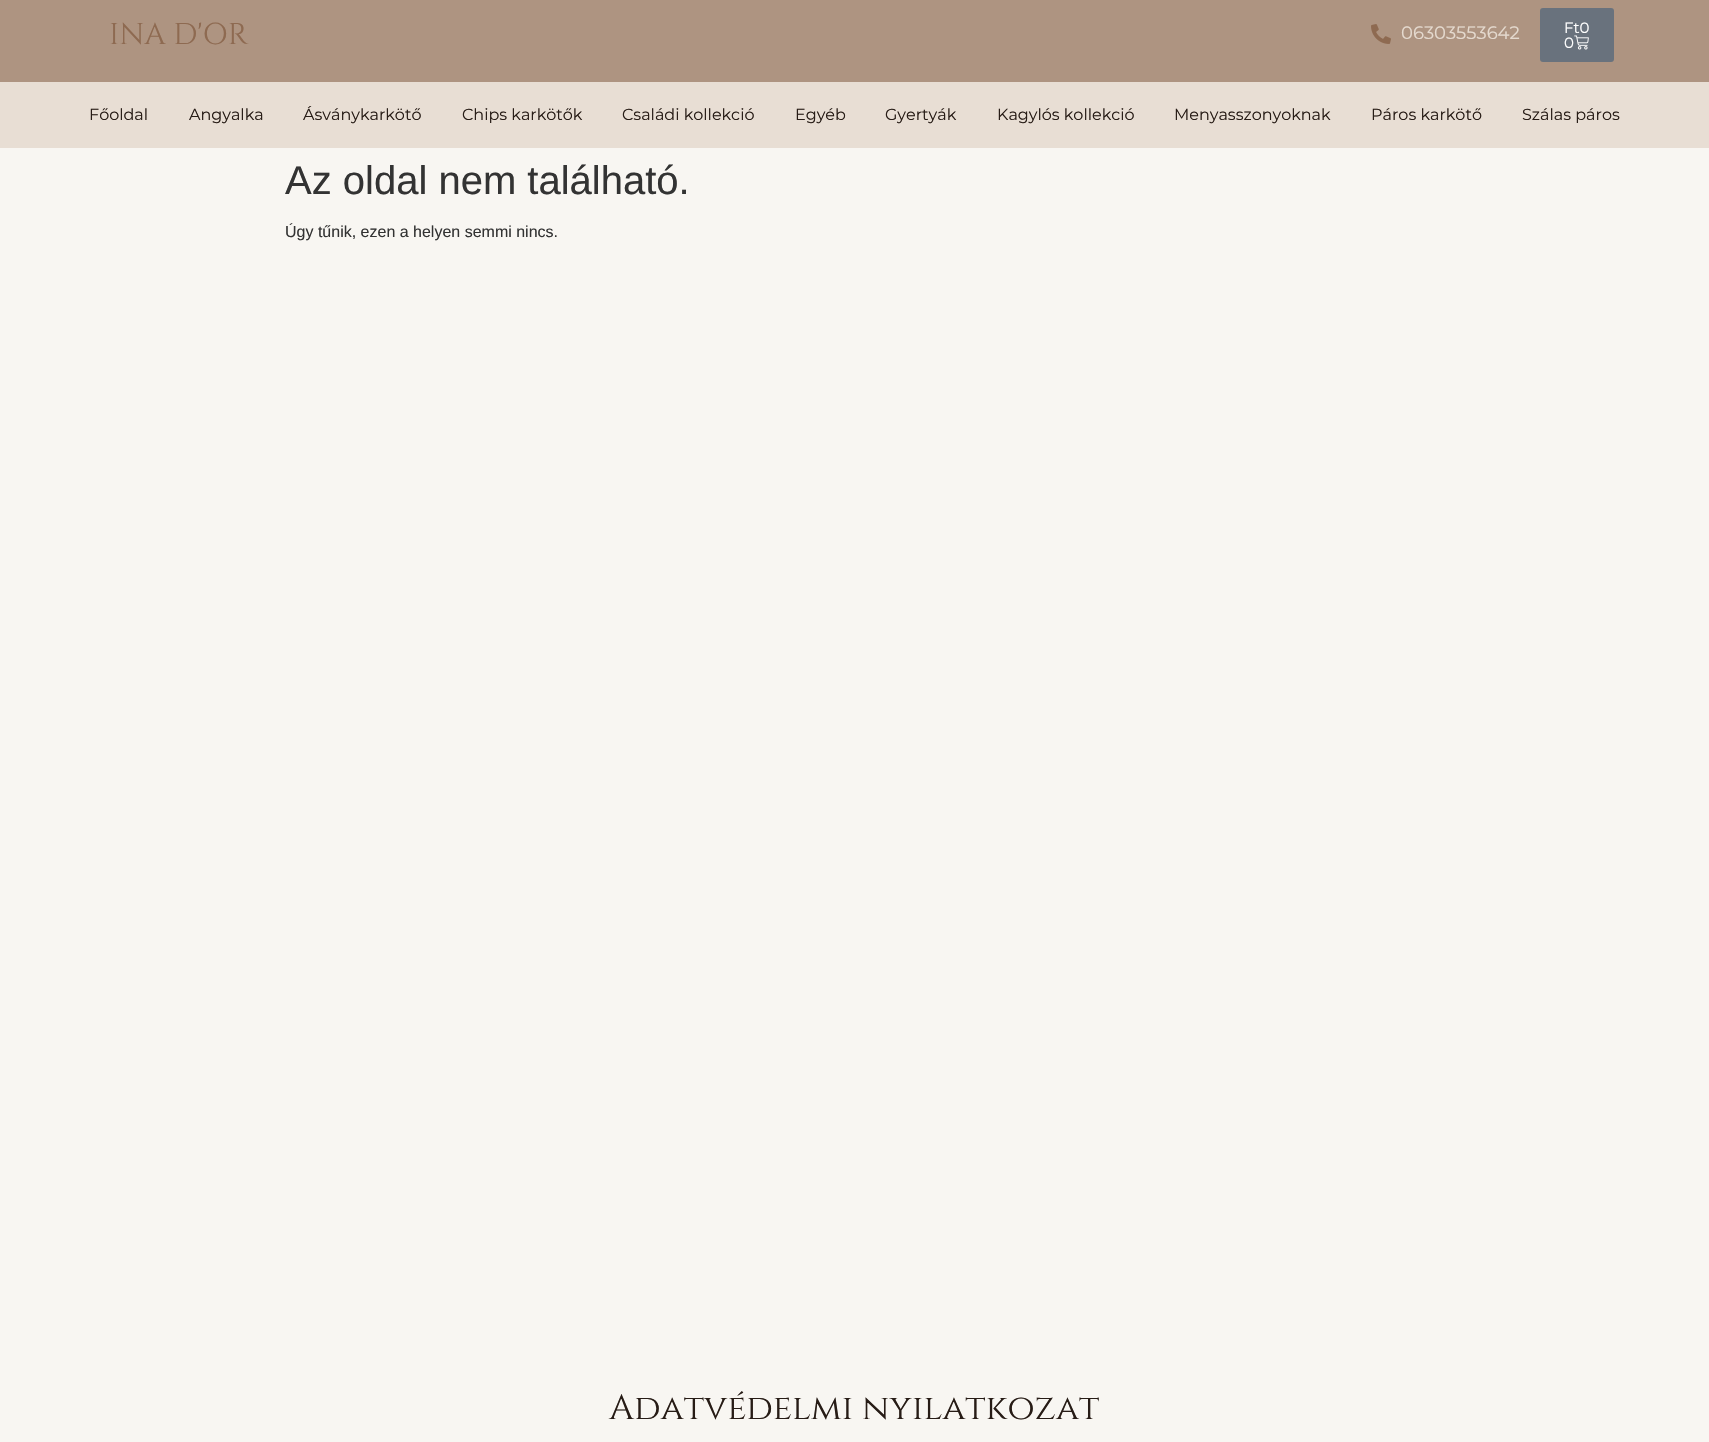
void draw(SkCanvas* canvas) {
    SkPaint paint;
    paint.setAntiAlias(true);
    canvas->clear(0xFFF8F6F2);
    paint.setColor(0xFFAE9481);
    canvas->drawRect(SkRect::MakeXYWH(0, 0, 1709, 82), paint);
    SkFont font1(fontMgr->matchFamilyStyle("Cinzel", SkFontStyle::Normal()), 30);
    font1.setSubpixel(true);
    paint.setColor(0xFF8E6A51);
    canvas->drawString("INA D'OR", 109, 44, font1, paint);
    canvas->drawImageRect(SkImages::DeferredFromEncodedData(SkData::MakeFromFileName("img1.png")), SkRect::MakeXYWH(1371, 24, 20, 20), SkSamplingOptions());
    SkFont font2(fontMgr->matchFamilyStyle("Montserrat", SkFontStyle::Normal()), 18);
    font2.setSubpixel(true);
    paint.setColor(0xFFE5DACF);
    canvas->drawString("06303553642", 1401, 39, font2, paint);
    paint.setColor(0xFF69727D);
    canvas->drawRoundRect(SkRect::MakeXYWH(1540, 8, 74, 54), 3, 3, paint);
    SkFont font3(fontMgr->matchFamilyStyle("Montserrat", SkFontStyle::Normal()), 15);
    font3.setSubpixel(true);
    paint.setColor(0xFFFFFFFF);
    canvas->drawString("Ft0", 1564, 33, font3, paint);
    canvas->drawString("0", 1564, 48, font3, paint);
    canvas->drawImageRect(SkImages::DeferredFromEncodedData(SkData::MakeFromFileName("img2.png")), SkRect::MakeXYWH(1574, 35, 15, 15), SkSamplingOptions());
    paint.setColor(0xFFE8DED4);
    canvas->drawRect(SkRect::MakeXYWH(0, 82, 1709, 66), paint);
    SkFont font4(fontMgr->matchFamilyStyle("Montserrat", SkFontStyle::Normal()), 16);
    font4.setSubpixel(true);
    paint.setColor(0xFF271C16);
    canvas->drawString("Főoldal", 89, 120, font4, paint);
    canvas->drawString("Angyalka", 189, 120, font4, paint);
    canvas->drawString("Ásványkarkötő", 303, 120, font4, paint);
    canvas->drawString("Chips karkötők", 462, 120, font4, paint);
    canvas->drawString("Családi kollekció", 622, 120, font4, paint);
    canvas->drawString("Egyéb", 795, 120, font4, paint);
    canvas->drawString("Gyertyák", 885, 120, font4, paint);
    canvas->drawString("Kagylós kollekció", 997, 120, font4, paint);
    canvas->drawString("Menyasszonyoknak", 1174, 120, font4, paint);
    canvas->drawString("Páros karkötő", 1371, 120, font4, paint);
    canvas->drawString("Szálas páros", 1522, 120, font4, paint);
    SkFont font5(fontMgr->matchFamilyStyle("Liberation Sans", SkFontStyle::Normal()), 40);
    font5.setSubpixel(true);
    paint.setColor(0xFF333333);
    canvas->drawString("Az oldal nem található.", 285, 194, font5, paint);
    SkFont font6(fontMgr->matchFamilyStyle("Liberation Sans", SkFontStyle::Normal()), 16);
    font6.setSubpixel(true);
    canvas->drawString("Úgy tűnik, ezen a helyen semmi nincs.", 285, 237, font6, paint);
    SkFont font7(fontMgr->matchFamilyStyle("Cinzel", SkFontStyle::Normal()), 35);
    font7.setSubpixel(true);
    paint.setColor(0xFF271C16);
    canvas->drawString("Adatvédelmi nyilatkozat", 609, 1419, font7, paint);
}
